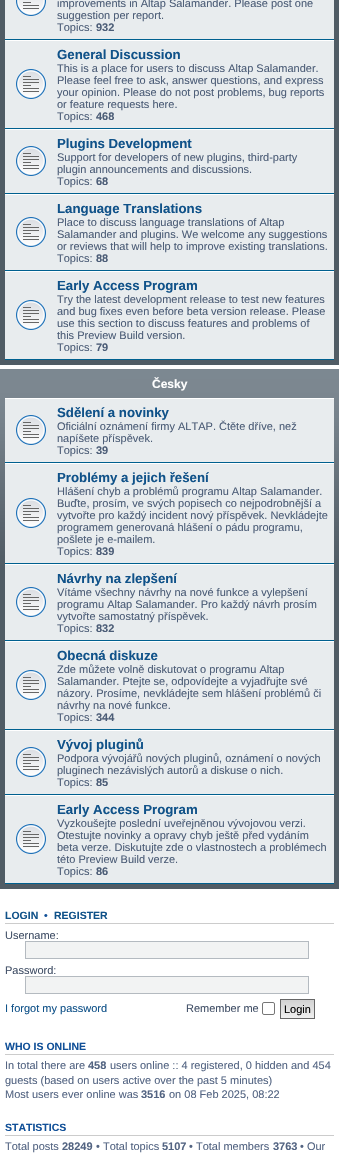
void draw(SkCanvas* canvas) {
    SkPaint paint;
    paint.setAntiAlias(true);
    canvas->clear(0xFFFFFFFF);
    paint.setColor(0xFF505C65);
    canvas->drawRect(SkRect::MakeXYWH(0, 0, 339, 365), paint);
    paint.setColor(0xFFE8ECEE);
    canvas->drawRect(SkRect::MakeXYWH(5, 0, 329, 39), paint);
    paint.setColor(0xFF00608F);
    canvas->drawRect(SkRect::MakeXYWH(5, 39, 329, 1), paint);
    canvas->drawImageRect(SkImages::DeferredFromEncodedData(SkData::MakeFromFileName("img1.png")), SkRect::MakeXYWH(16, 0, 30, 16), SkSamplingOptions());
    SkFont font1(fontMgr->matchFamilyStyle("Liberation Sans", SkFontStyle::Normal()), 11);
    font1.setSubpixel(true);
    paint.setColor(0xFF4C5D77);
    canvas->drawString("improvements in Altap Salamander. Please post one", 57, 7, font1, paint);
    canvas->drawString("suggestion per report.", 57, 19, font1, paint);
    canvas->drawString("Topics:", 57, 31, font1, paint);
    SkFont font2(fontMgr->matchFamilyStyle("Liberation Sans", SkFontStyle::Bold()), 11);
    font2.setSubpixel(true);
    canvas->drawString("932", 96, 31, font2, paint);
    paint.setColor(0xFFE8ECEE);
    canvas->drawRect(SkRect::MakeXYWH(5, 41, 329, 87), paint);
    paint.setColor(0xFFFFFFFF);
    canvas->drawRect(SkRect::MakeXYWH(5, 40, 329, 1), paint);
    paint.setColor(0xFF00608F);
    canvas->drawRect(SkRect::MakeXYWH(5, 128, 329, 1), paint);
    canvas->drawImageRect(SkImages::DeferredFromEncodedData(SkData::MakeFromFileName("img2.png")), SkRect::MakeXYWH(16, 69, 30, 30), SkSamplingOptions());
    SkFont font3(fontMgr->matchFamilyStyle("Liberation Sans", SkFontStyle::Bold()), 13.25f);
    font3.setSubpixel(true);
    paint.setColor(0xFF105289);
    canvas->drawString("General Discussion", 57, 59, font3, paint);
    paint.setColor(0xFF4C5D77);
    canvas->drawString("This is a place for users to discuss Altap Salamander.", 57, 72, font1, paint);
    canvas->drawString("Please feel free to ask, answer questions, and express", 57, 84, font1, paint);
    canvas->drawString("your opinion. Please do not post problems, bug reports", 57, 96, font1, paint);
    canvas->drawString("or feature requests here.", 57, 108, font1, paint);
    canvas->drawString("Topics:", 57, 120, font1, paint);
    canvas->drawString("468", 96, 120, font2, paint);
    paint.setColor(0xFFE8ECEE);
    canvas->drawRect(SkRect::MakeXYWH(5, 130, 329, 63), paint);
    paint.setColor(0xFFFFFFFF);
    canvas->drawRect(SkRect::MakeXYWH(5, 129, 329, 1), paint);
    paint.setColor(0xFF00608F);
    canvas->drawRect(SkRect::MakeXYWH(5, 193, 329, 1), paint);
    canvas->drawImageRect(SkImages::DeferredFromEncodedData(SkData::MakeFromFileName("img2.png")), SkRect::MakeXYWH(16, 146, 30, 30), SkSamplingOptions());
    paint.setColor(0xFF105289);
    canvas->drawString("Plugins Development", 57, 148, font3, paint);
    paint.setColor(0xFF4C5D77);
    canvas->drawString("Support for developers of new plugins, third-party", 57, 161, font1, paint);
    canvas->drawString("plugin announcements and discussions.", 57, 173, font1, paint);
    canvas->drawString("Topics:", 57, 185, font1, paint);
    canvas->drawString("68", 96, 185, font2, paint);
    paint.setColor(0xFFE8ECEE);
    canvas->drawRect(SkRect::MakeXYWH(5, 195, 329, 75), paint);
    paint.setColor(0xFFFFFFFF);
    canvas->drawRect(SkRect::MakeXYWH(5, 194, 329, 1), paint);
    paint.setColor(0xFF00608F);
    canvas->drawRect(SkRect::MakeXYWH(5, 270, 329, 1), paint);
    canvas->drawImageRect(SkImages::DeferredFromEncodedData(SkData::MakeFromFileName("img2.png")), SkRect::MakeXYWH(16, 217, 30, 30), SkSamplingOptions());
    paint.setColor(0xFF105289);
    canvas->drawString("Language Translations", 57, 213, font3, paint);
    paint.setColor(0xFF4C5D77);
    canvas->drawString("Place to discuss language translations of Altap", 57, 226, font1, paint);
    canvas->drawString("Salamander and plugins. We welcome any suggestions", 57, 238, font1, paint);
    canvas->drawString("or reviews that will help to improve existing translations.", 57, 250, font1, paint);
    canvas->drawString("Topics:", 57, 262, font1, paint);
    canvas->drawString("88", 96, 262, font2, paint);
    paint.setColor(0xFFE8ECEE);
    canvas->drawRect(SkRect::MakeXYWH(5, 272, 329, 87), paint);
    paint.setColor(0xFFFFFFFF);
    canvas->drawRect(SkRect::MakeXYWH(5, 271, 329, 1), paint);
    paint.setColor(0xFF00608F);
    canvas->drawRect(SkRect::MakeXYWH(5, 359, 329, 1), paint);
    canvas->drawImageRect(SkImages::DeferredFromEncodedData(SkData::MakeFromFileName("img2.png")), SkRect::MakeXYWH(16, 300, 30, 30), SkSamplingOptions());
    paint.setColor(0xFF105289);
    canvas->drawString("Early Access Program", 57, 290, font3, paint);
    paint.setColor(0xFF4C5D77);
    canvas->drawString("Try the latest development release to test new features", 57, 303, font1, paint);
    canvas->drawString("and bug fixes even before beta version release. Please", 57, 315, font1, paint);
    canvas->drawString("use this section to discuss features and problems of", 57, 327, font1, paint);
    canvas->drawString("this Preview Build version.", 57, 339, font1, paint);
    canvas->drawString("Topics:", 57, 351, font1, paint);
    canvas->drawString("79", 96, 351, font2, paint);
    {
        const SkColor colors[] = {0xFF7C8891, 0xFF7C8790, 0xFF76828B, 0xFF5B666F, 0xFF505C65, 0xFF505C65};
        const float stops[] = {0, 0.04f, 0.1f, 0.29f, 0.38f, 1};
        const SkPoint ends[] = {{169, 369}, {170, 889}};
        paint.setShader(SkGradientShader::MakeLinear(ends, colors, stops, 6, SkTileMode::kClamp));
        paint.setAlpha(255);
    }
    canvas->drawRect(SkRect::MakeXYWH(0, 369, 339, 520), paint);
    SkFont font4(fontMgr->matchFamilyStyle("Liberation Sans", SkFontStyle::Bold()), 12);
    font4.setSubpixel(true);
    paint.setShader(nullptr);
    paint.setColor(0xFFFFFFFF);
    canvas->drawString("Česky", 152, 388, font4, paint);
    paint.setColor(0xFFE8ECEE);
    canvas->drawRect(SkRect::MakeXYWH(5, 399, 329, 63), paint);
    paint.setColor(0xFFFFFFFF);
    canvas->drawRect(SkRect::MakeXYWH(5, 398, 329, 1), paint);
    paint.setColor(0xFF00608F);
    canvas->drawRect(SkRect::MakeXYWH(5, 462, 329, 1), paint);
    canvas->drawImageRect(SkImages::DeferredFromEncodedData(SkData::MakeFromFileName("img2.png")), SkRect::MakeXYWH(16, 415, 30, 30), SkSamplingOptions());
    paint.setColor(0xFF105289);
    canvas->drawString("Sdělení a novinky", 57, 417, font3, paint);
    paint.setColor(0xFF4C5D77);
    canvas->drawString("Oficiální oznámení firmy ALTAP. Čtěte dříve, než", 57, 430, font1, paint);
    canvas->drawString("napíšete příspěvek.", 57, 442, font1, paint);
    canvas->drawString("Topics:", 57, 454, font1, paint);
    canvas->drawString("39", 96, 454, font2, paint);
    paint.setColor(0xFFE8ECEE);
    canvas->drawRect(SkRect::MakeXYWH(5, 464, 329, 99), paint);
    paint.setColor(0xFFFFFFFF);
    canvas->drawRect(SkRect::MakeXYWH(5, 463, 329, 1), paint);
    paint.setColor(0xFF00608F);
    canvas->drawRect(SkRect::MakeXYWH(5, 563, 329, 1), paint);
    canvas->drawImageRect(SkImages::DeferredFromEncodedData(SkData::MakeFromFileName("img2.png")), SkRect::MakeXYWH(16, 498, 30, 30), SkSamplingOptions());
    paint.setColor(0xFF105289);
    canvas->drawString("Problémy a jejich řešení", 57, 482, font3, paint);
    paint.setColor(0xFF4C5D77);
    canvas->drawString("Hlášení chyb a problémů programu Altap Salamander.", 57, 495, font1, paint);
    canvas->drawString("Buďte, prosím, ve svých popisech co nejpodrobnější a", 57, 507, font1, paint);
    canvas->drawString("vytvořte pro každý incident nový příspěvek. Nevkládejte", 57, 519, font1, paint);
    canvas->drawString("programem generovaná hlášení o pádu programu,", 57, 531, font1, paint);
    canvas->drawString("pošlete je e-mailem.", 57, 543, font1, paint);
    canvas->drawString("Topics:", 57, 555, font1, paint);
    canvas->drawString("839", 96, 555, font2, paint);
    paint.setColor(0xFFE8ECEE);
    canvas->drawRect(SkRect::MakeXYWH(5, 565, 329, 75), paint);
    paint.setColor(0xFFFFFFFF);
    canvas->drawRect(SkRect::MakeXYWH(5, 564, 329, 1), paint);
    paint.setColor(0xFF00608F);
    canvas->drawRect(SkRect::MakeXYWH(5, 640, 329, 1), paint);
    canvas->drawImageRect(SkImages::DeferredFromEncodedData(SkData::MakeFromFileName("img2.png")), SkRect::MakeXYWH(16, 587, 30, 30), SkSamplingOptions());
    paint.setColor(0xFF105289);
    canvas->drawString("Návrhy na zlepšení", 57, 583, font3, paint);
    paint.setColor(0xFF4C5D77);
    canvas->drawString("Vítáme všechny návrhy na nové funkce a vylepšení", 57, 596, font1, paint);
    canvas->drawString("programu Altap Salamander. Pro každý návrh prosím", 57, 608, font1, paint);
    canvas->drawString("vytvořte samostatný příspěvek.", 57, 620, font1, paint);
    canvas->drawString("Topics:", 57, 632, font1, paint);
    canvas->drawString("832", 96, 632, font2, paint);
    paint.setColor(0xFFE8ECEE);
    canvas->drawRect(SkRect::MakeXYWH(5, 642, 329, 87), paint);
    paint.setColor(0xFFFFFFFF);
    canvas->drawRect(SkRect::MakeXYWH(5, 641, 329, 1), paint);
    paint.setColor(0xFF00608F);
    canvas->drawRect(SkRect::MakeXYWH(5, 729, 329, 1), paint);
    canvas->drawImageRect(SkImages::DeferredFromEncodedData(SkData::MakeFromFileName("img2.png")), SkRect::MakeXYWH(16, 670, 30, 30), SkSamplingOptions());
    paint.setColor(0xFF105289);
    canvas->drawString("Obecná diskuze", 57, 660, font3, paint);
    paint.setColor(0xFF4C5D77);
    canvas->drawString("Zde můžete volně diskutovat o programu Altap", 57, 673, font1, paint);
    canvas->drawString("Salamander. Ptejte se, odpovídejte a vyjadřujte své", 57, 685, font1, paint);
    canvas->drawString("názory. Prosíme, nevkládejte sem hlášení problémů či", 57, 697, font1, paint);
    canvas->drawString("návrhy na nové funkce.", 57, 709, font1, paint);
    canvas->drawString("Topics:", 57, 721, font1, paint);
    canvas->drawString("344", 96, 721, font2, paint);
    paint.setColor(0xFFE8ECEE);
    canvas->drawRect(SkRect::MakeXYWH(5, 731, 329, 63), paint);
    paint.setColor(0xFFFFFFFF);
    canvas->drawRect(SkRect::MakeXYWH(5, 730, 329, 1), paint);
    paint.setColor(0xFF00608F);
    canvas->drawRect(SkRect::MakeXYWH(5, 794, 329, 1), paint);
    canvas->drawImageRect(SkImages::DeferredFromEncodedData(SkData::MakeFromFileName("img2.png")), SkRect::MakeXYWH(16, 747, 30, 30), SkSamplingOptions());
    paint.setColor(0xFF105289);
    canvas->drawString("Vývoj pluginů", 57, 749, font3, paint);
    paint.setColor(0xFF4C5D77);
    canvas->drawString("Podpora vývojářů nových pluginů, oznámení o nových", 57, 762, font1, paint);
    canvas->drawString("pluginech nezávislých autorů a diskuse o nich.", 57, 774, font1, paint);
    canvas->drawString("Topics:", 57, 786, font1, paint);
    canvas->drawString("85", 96, 786, font2, paint);
    paint.setColor(0xFFE8ECEE);
    canvas->drawRect(SkRect::MakeXYWH(5, 796, 329, 87), paint);
    paint.setColor(0xFFFFFFFF);
    canvas->drawRect(SkRect::MakeXYWH(5, 795, 329, 1), paint);
    paint.setColor(0xFF00608F);
    canvas->drawRect(SkRect::MakeXYWH(5, 883, 329, 1), paint);
    canvas->drawImageRect(SkImages::DeferredFromEncodedData(SkData::MakeFromFileName("img2.png")), SkRect::MakeXYWH(16, 824, 30, 30), SkSamplingOptions());
    paint.setColor(0xFF105289);
    canvas->drawString("Early Access Program", 57, 814, font3, paint);
    paint.setColor(0xFF4C5D77);
    canvas->drawString("Vyzkoušejte poslední uveřejněnou vývojovou verzi.", 57, 827, font1, paint);
    canvas->drawString("Otestujte novinky a opravy chyb ještě před vydáním", 57, 839, font1, paint);
    canvas->drawString("beta verze. Diskutujte zde o vlastnostech a problémech", 57, 851, font1, paint);
    canvas->drawString("této Preview Build verze.", 57, 863, font1, paint);
    canvas->drawString("Topics:", 57, 875, font1, paint);
    canvas->drawString("86", 96, 875, font2, paint);
    paint.setColor(0xFFCCCCCC);
    canvas->drawRect(SkRect::MakeXYWH(5, 923, 329, 1), paint);
    SkFont font5(fontMgr->matchFamilyStyle("Liberation Sans", SkFontStyle::Bold()), 10.5f);
    font5.setSubpixel(true);
    paint.setColor(0xFF105289);
    canvas->drawString("LOGIN", 5, 919, font5, paint);
    paint.setColor(0xFF115098);
    canvas->drawString("•", 44, 919, font5, paint);
    paint.setColor(0xFF105289);
    canvas->drawString("REGISTER", 54, 919, font5, paint);
    paint.setColor(0xFF425067);
    canvas->drawString("Username:", 5, 939, font1, paint);
    paint.setColor(0xFFF2F3F3);
    canvas->drawRect(SkRect::MakeXYWH(25.5f, 941.5f, 283, 17), paint);
    paint.setStyle(SkPaint::kStroke_Style);
    paint.setStrokeWidth(1);
    paint.setColor(0xFFB4BAC0);
    canvas->drawRect(SkRect::MakeXYWH(25.5f, 941.5f, 283, 17), paint);
    paint.setStyle(SkPaint::kFill_Style);
    paint.setColor(0xFF425067);
    canvas->drawString("Password:", 5, 974, font1, paint);
    paint.setColor(0xFFF2F3F3);
    canvas->drawRect(SkRect::MakeXYWH(25.5f, 976.5f, 283, 17), paint);
    paint.setStyle(SkPaint::kStroke_Style);
    paint.setColor(0xFFB4BAC0);
    canvas->drawRect(SkRect::MakeXYWH(25.5f, 976.5f, 283, 17), paint);
    paint.setStyle(SkPaint::kFill_Style);
    paint.setColor(0xFF105289);
    canvas->drawString("I forgot my password", 5, 1012, font1, paint);
    paint.setColor(0xFF425067);
    canvas->drawString("Remember me", 186, 1012, font1, paint);
    paint.setStyle(SkPaint::kStroke_Style);
    paint.setColor(0xFF767676);
    canvas->drawRoundRect(SkRect::MakeXYWH(262.5f, 1002.5f, 12, 12), 1.5f, 1.5f, paint);
    paint.setStyle(SkPaint::kFill_Style);
    {
        const SkColor colors[] = {0xFFD2D2D2, 0xFFEFEFEF};
        const float stops[] = {0, 1};
        const SkPoint ends[] = {{298, 1000}, {298, 1018}};
        paint.setShader(SkGradientShader::MakeLinear(ends, colors, stops, 2, SkTileMode::kClamp));
        paint.setAlpha(255);
    }
    canvas->drawRect(SkRect::MakeXYWH(281, 1000, 33, 18), paint);
    paint.setStyle(SkPaint::kStroke_Style);
    paint.setShader(nullptr);
    paint.setColor(0xFF666666);
    canvas->drawRect(SkRect::MakeXYWH(280.5f, 999.5f, 34, 19), paint);
    paint.setStyle(SkPaint::kFill_Style);
    paint.setColor(0xFF000000);
    canvas->drawString("Login", 284, 1013, font1, paint);
    paint.setColor(0xFFCCCCCC);
    canvas->drawRect(SkRect::MakeXYWH(5, 1054, 329, 1), paint);
    paint.setColor(0xFF115098);
    canvas->drawString("WHO IS ONLINE", 5, 1050, font5, paint);
    paint.setColor(0xFF536482);
    canvas->drawString("In total there are", 5, 1069, font1, paint);
    canvas->drawString("458", 88, 1069, font2, paint);
    canvas->drawString("users online :: 4 registered, 0 hidden and 454", 110, 1069, font1, paint);
    canvas->drawString("guests (based on users active over the past 5 minutes)", 5, 1084, font1, paint);
    canvas->drawString("Most users ever online was", 5, 1098, font1, paint);
    canvas->drawString("3516", 141, 1098, font2, paint);
    canvas->drawString("on 08 Feb 2025, 08:22", 169, 1098, font1, paint);
    paint.setColor(0xFFCCCCCC);
    canvas->drawRect(SkRect::MakeXYWH(5, 1135, 329, 1), paint);
    paint.setColor(0xFF115098);
    canvas->drawString("STATISTICS", 5, 1131, font5, paint);
    paint.setColor(0xFF536482);
    canvas->drawString("Total posts", 5, 1150, font1, paint);
    canvas->drawString("28249", 62, 1150, font2, paint);
    canvas->drawString("• Total topics", 96, 1150, font1, paint);
    canvas->drawString("5107", 162, 1150, font2, paint);
    canvas->drawString("• Total members", 189, 1150, font1, paint);
    canvas->drawString("3763", 273, 1150, font2, paint);
    canvas->drawString("• Our", 300, 1150, font1, paint);
}
